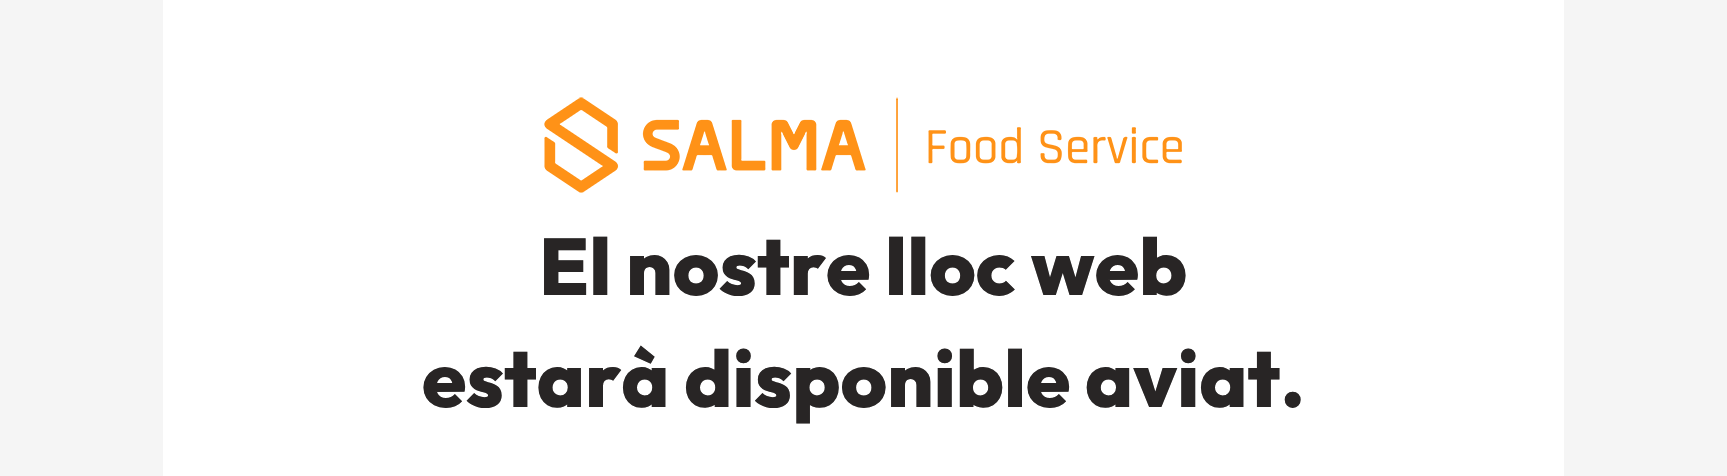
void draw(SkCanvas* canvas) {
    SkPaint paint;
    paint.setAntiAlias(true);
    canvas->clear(0xFFF5F5F5);
    paint.setColor(0xFFFFFFFF);
    canvas->drawRect(SkRect::MakeXYWH(163, 0, 1401, 476), paint);
    canvas->drawImageRect(SkImages::DeferredFromEncodedData(SkData::MakeFromFileName("img1.png")), SkRect::MakeXYWH(544, 97, 638, 96), SkSamplingOptions());
    SkFont font1(fontMgr->matchFamilyStyle("Outfit", SkFontStyle(800, SkFontStyle::kNormal_Width, SkFontStyle::kUpright_Slant)), 80);
    font1.setSubpixel(true);
    paint.setColor(0xFF282525);
    canvas->drawString("El nostre lloc web", 539, 295, font1, paint);
    canvas->drawString("estarà disponible aviat.", 422, 407, font1, paint);
}
